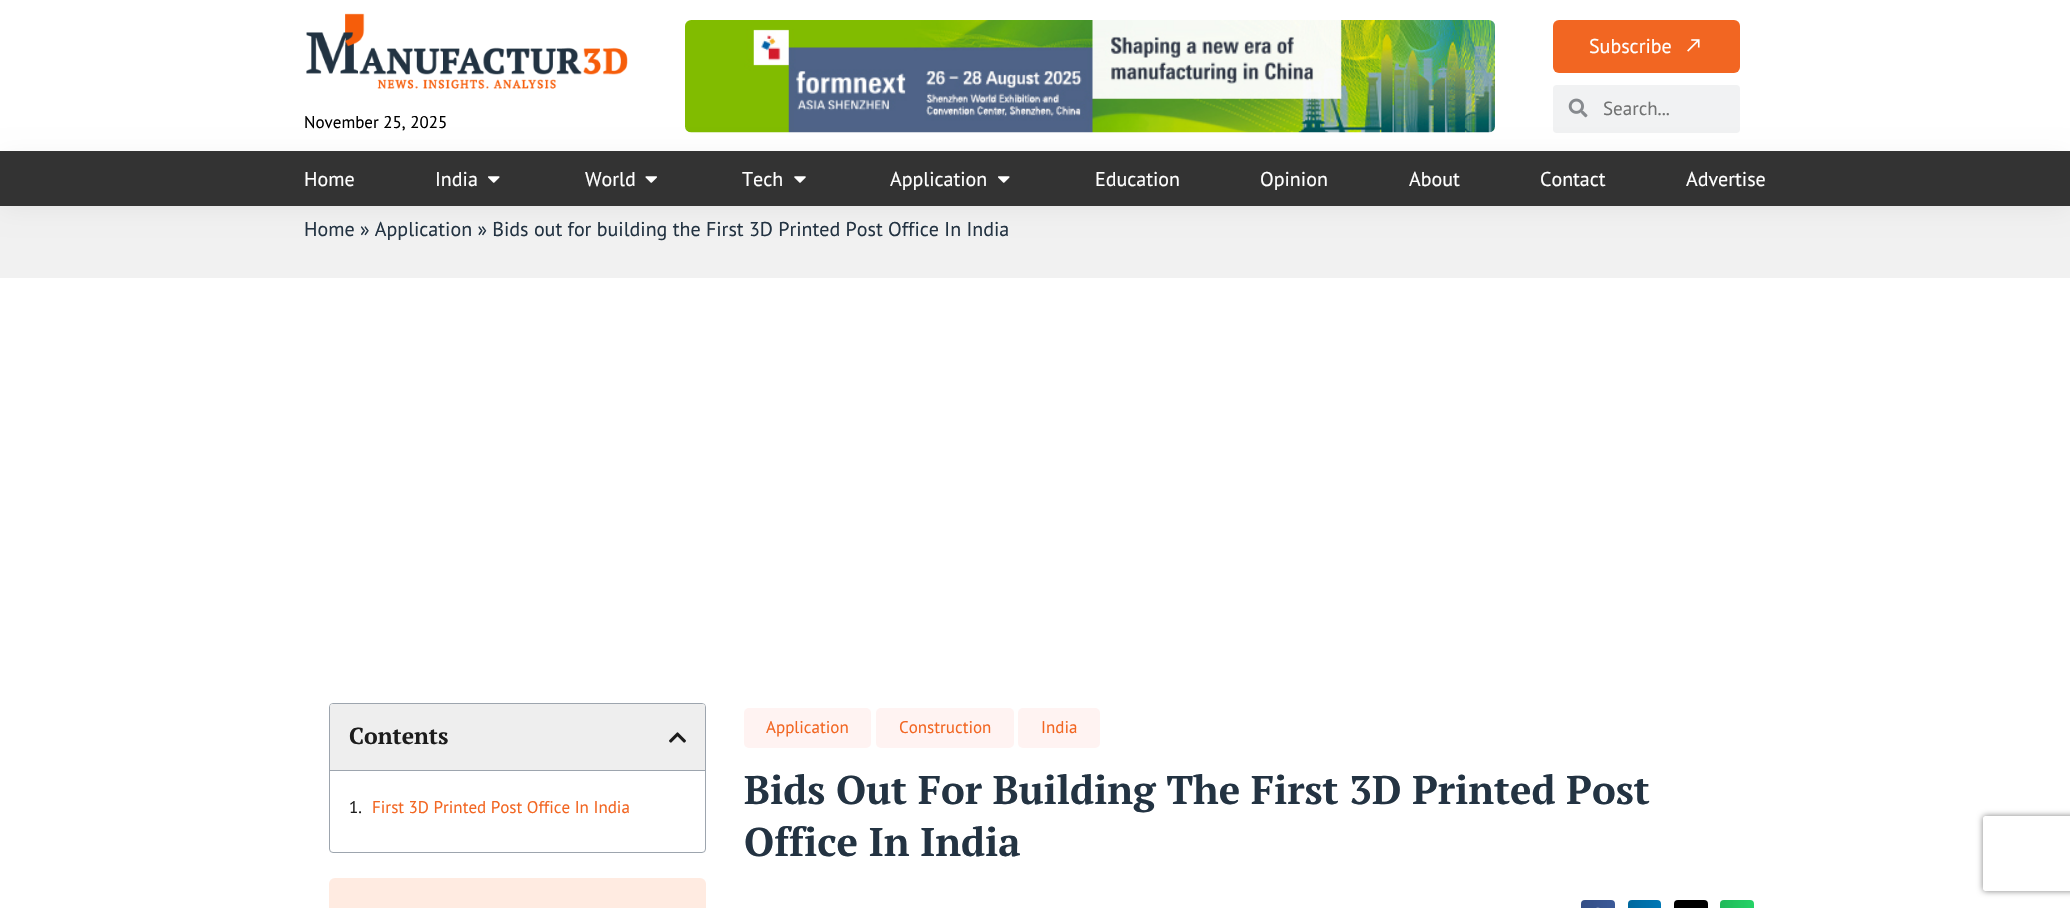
void draw(SkCanvas* canvas) {
    SkPaint paint;
    paint.setAntiAlias(true);
    canvas->clear(0xFFFFFFFF);
    canvas->drawImageRect(SkImages::DeferredFromEncodedData(SkData::MakeFromFileName("img1.png")), SkRect::MakeXYWH(685, 20, 810, 113), SkSamplingOptions());
    paint.setColor(0xFFF26622);
    canvas->drawRoundRect(SkRect::MakeXYWH(1553, 20, 187, 53), 6, 6, paint);
    SkFont font1(fontMgr->matchFamilyStyle("PT Sans", SkFontStyle::Normal()), 20);
    font1.setSubpixel(true);
    paint.setColor(0xFFFFFFFF);
    canvas->drawString("Subscribe", 1589, 53, font1, paint);
    canvas->drawImageRect(SkImages::DeferredFromEncodedData(SkData::MakeFromFileName("img2.png")), SkRect::MakeXYWH(1687, 39, 13, 13), SkSamplingOptions());
    paint.setColor(0xFFF1F2F3);
    canvas->drawRoundRect(SkRect::MakeXYWH(1553, 85, 187, 48), 4, 4, paint);
    canvas->drawImageRect(SkImages::DeferredFromEncodedData(SkData::MakeFromFileName("img3.png")), SkRect::MakeXYWH(1568, 98, 20, 20), SkSamplingOptions());
    SkFont font2(fontMgr->matchFamilyStyle("PT Sans", SkFontStyle::Normal()), 19);
    font2.setSubpixel(true);
    paint.setColor(0xFF717272);
    canvas->drawString("Search...", 1603, 115, font2, paint);
    canvas->drawImageRect(SkImages::DeferredFromEncodedData(SkData::MakeFromFileName("img4.png")), SkRect::MakeXYWH(306, 13, 322, 76), SkSamplingOptions());
    SkFont font3(fontMgr->matchFamilyStyle("PT Sans", SkFontStyle::Normal()), 17);
    font3.setSubpixel(true);
    paint.setColor(0xFF000000);
    canvas->drawString("November 25, 2025", 304, 128, font3, paint);
    paint.setColor(0xFFF1F1F1);
    canvas->drawRect(SkRect::MakeXYWH(0, 206, 2070, 72), paint);
    paint.setColor(0x0D000000);
    paint.setMaskFilter(SkMaskFilter::MakeBlur(kNormal_SkBlurStyle, 12.5f));
    canvas->drawRect(SkRect::MakeXYWH(1, 156, 2068, 53), paint);
    paint.setMaskFilter(nullptr);
    paint.setColor(0xFF333333);
    canvas->drawRect(SkRect::MakeXYWH(0, 151, 2070, 55), paint);
    paint.setColor(0xFFFFFFFF);
    canvas->drawString("Home", 304, 186, font1, paint);
    canvas->drawString("India", 435, 186, font1, paint);
    canvas->drawImageRect(SkImages::DeferredFromEncodedData(SkData::MakeFromFileName("img5.png")), SkRect::MakeXYWH(488, 176, 12, 7), SkSamplingOptions());
    canvas->drawString("World", 585, 186, font1, paint);
    canvas->drawImageRect(SkImages::DeferredFromEncodedData(SkData::MakeFromFileName("img6.png")), SkRect::MakeXYWH(645, 176, 12, 7), SkSamplingOptions());
    canvas->drawString("Tech", 742, 186, font1, paint);
    canvas->drawImageRect(SkImages::DeferredFromEncodedData(SkData::MakeFromFileName("img7.png")), SkRect::MakeXYWH(794, 176, 12, 7), SkSamplingOptions());
    canvas->drawString("Application", 890, 186, font1, paint);
    canvas->drawImageRect(SkImages::DeferredFromEncodedData(SkData::MakeFromFileName("img5.png")), SkRect::MakeXYWH(998, 176, 12, 7), SkSamplingOptions());
    canvas->drawString("Education", 1095, 186, font1, paint);
    canvas->drawString("Opinion", 1260, 186, font1, paint);
    canvas->drawString("About", 1409, 186, font1, paint);
    canvas->drawString("Contact", 1540, 186, font1, paint);
    canvas->drawString("Advertise", 1686, 186, font1, paint);
    paint.setColor(0xFF233342);
    canvas->drawString("Home » Application » Bids out for building the First 3D Printed Post Office In India", 304, 236, font1, paint);
    paint.setStyle(SkPaint::kStroke_Style);
    paint.setStrokeWidth(1);
    paint.setColor(0xFF9DA5AE);
    canvas->drawRoundRect(SkRect::MakeXYWH(329.5f, 703.5f, 376, 149), 3.5f, 3.5f, paint);
    paint.setStyle(SkPaint::kFill_Style);
    paint.setColor(0xFFEEEEEE);
    canvas->drawPath(SkPathBuilder().moveTo(332.5f, 704).lineTo(702.5f, 704).cubicTo(704, 704, 705, 705, 705, 706.5f).lineTo(705, 771).lineTo(330, 771).lineTo(330, 706.5f).cubicTo(330, 705, 331, 704, 332.5f, 704).close().detach(), paint);
    paint.setColor(0xFF9DA5AE);
    canvas->drawRect(SkRect::MakeXYWH(330, 770, 375, 1), paint);
    SkFont font4(fontMgr->matchFamilyStyle("PT Serif", SkFontStyle::Bold()), 23);
    font4.setSubpixel(true);
    paint.setColor(0xFF1C1C1C);
    canvas->drawString("Contents", 349, 744, font4, paint);
    canvas->drawImageRect(SkImages::DeferredFromEncodedData(SkData::MakeFromFileName("img8.png")), SkRect::MakeXYWH(669, 732, 17, 11), SkSamplingOptions());
    canvas->drawString("1.", 349, 813, font3, paint);
    paint.setColor(0xFFF26622);
    canvas->drawString("First 3D Printed Post Office In India", 372, 813, font3, paint);
    paint.setColor(0xFFFFEBE1);
    canvas->drawRoundRect(SkRect::MakeXYWH(329, 878, 377, 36), 6, 6, paint);
    canvas->save();
    canvas->clipPath(SkPathBuilder(SkPathFillType::kEvenOdd).moveTo(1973, 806).lineTo(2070, 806).lineTo(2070, 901).lineTo(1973, 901).close().moveTo(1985.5f, 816).lineTo(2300.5f, 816).cubicTo(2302, 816, 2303, 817, 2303, 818.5f).lineTo(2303, 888.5f).cubicTo(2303, 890, 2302, 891, 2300.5f, 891).lineTo(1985.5f, 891).cubicTo(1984, 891, 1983, 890, 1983, 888.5f).lineTo(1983, 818.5f).cubicTo(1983, 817, 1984, 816, 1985.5f, 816).close().detach(), true);
    paint.setColor(0xFF808080);
    paint.setMaskFilter(SkMaskFilter::MakeBlur(kNormal_SkBlurStyle, 3));
    canvas->drawRoundRect(SkRect::MakeXYWH(1983, 816, 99, 75), 2.5f, 2.5f, paint);
    paint.setMaskFilter(nullptr);
    canvas->restore();
    paint.setColor(0xFFFFF3F2);
    canvas->drawRoundRect(SkRect::MakeXYWH(744, 708, 127, 40), 5, 5, paint);
    paint.setColor(0xFFF26622);
    canvas->drawString("Application", 766, 733, font3, paint);
    paint.setColor(0xFFFFF3F2);
    canvas->drawRoundRect(SkRect::MakeXYWH(876, 708, 138, 40), 5, 5, paint);
    paint.setColor(0xFFF26622);
    canvas->drawString("Construction", 899, 733, font3, paint);
    paint.setColor(0xFFFFF3F2);
    canvas->drawRoundRect(SkRect::MakeXYWH(1018, 708, 82, 40), 5, 5, paint);
    paint.setColor(0xFFF26622);
    canvas->drawString("India", 1041, 733, font3, paint);
    SkFont font5(fontMgr->matchFamilyStyle("PT Serif", SkFontStyle::Bold()), 40);
    font5.setSubpixel(true);
    paint.setColor(0xFF233342);
    canvas->drawString("Bids Out For Building The First 3D Printed Post", 744, 804, font5, paint);
    canvas->drawString("Office In India", 744, 856, font5, paint);
    paint.setColor(0xFF3B5998);
    canvas->drawRoundRect(SkRect::MakeXYWH(1581, 900, 34, 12), 4, 4, paint);
    {
        const SkColor colors[] = {0x1F000000, 0x00000000};
        const float stops[] = {0, 1};
        const SkPoint ends[] = {{1581, 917}, {1615, 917}};
        paint.setShader(SkGradientShader::MakeLinear(ends, colors, stops, 2, SkTileMode::kClamp));
        paint.setAlpha(255);
    }
    canvas->drawRoundRect(SkRect::MakeXYWH(1581, 900, 34, 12), 4, 4, paint);
    canvas->drawImageRect(SkImages::DeferredFromEncodedData(SkData::MakeFromFileName("img9.png")), SkRect::MakeXYWH(1596, 907, 4, 1), SkSamplingOptions());
    paint.setShader(nullptr);
    paint.setColor(0xFF0077B5);
    canvas->drawRoundRect(SkRect::MakeXYWH(1628, 900, 33, 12), 4, 4, paint);
    {
        const SkColor colors[] = {0x1F000000, 0x00000000};
        const float stops[] = {0, 1};
        const SkPoint ends[] = {{1628, 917}, {1661, 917}};
        paint.setShader(SkGradientShader::MakeLinear(ends, colors, stops, 2, SkTileMode::kClamp));
        paint.setAlpha(255);
    }
    canvas->drawRoundRect(SkRect::MakeXYWH(1628, 900, 33, 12), 4, 4, paint);
    paint.setShader(nullptr);
    paint.setColor(0xFF000000);
    canvas->drawRoundRect(SkRect::MakeXYWH(1674, 900, 34, 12), 4, 4, paint);
    {
        const SkColor colors[] = {0x1F000000, 0x00000000};
        const float stops[] = {0, 1};
        const SkPoint ends[] = {{1674, 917}, {1708, 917}};
        paint.setShader(SkGradientShader::MakeLinear(ends, colors, stops, 2, SkTileMode::kClamp));
        paint.setAlpha(255);
    }
    canvas->drawRoundRect(SkRect::MakeXYWH(1674, 900, 34, 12), 4, 4, paint);
    paint.setShader(nullptr);
    paint.setColor(0xFF25D366);
    canvas->drawRoundRect(SkRect::MakeXYWH(1720, 900, 34, 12), 4, 4, paint);
    {
        const SkColor colors[] = {0x1F000000, 0x00000000};
        const float stops[] = {0, 1};
        const SkPoint ends[] = {{1720, 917}, {1754, 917}};
        paint.setShader(SkGradientShader::MakeLinear(ends, colors, stops, 2, SkTileMode::kClamp));
        paint.setAlpha(255);
    }
    canvas->drawRoundRect(SkRect::MakeXYWH(1720, 900, 34, 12), 4, 4, paint);
}
